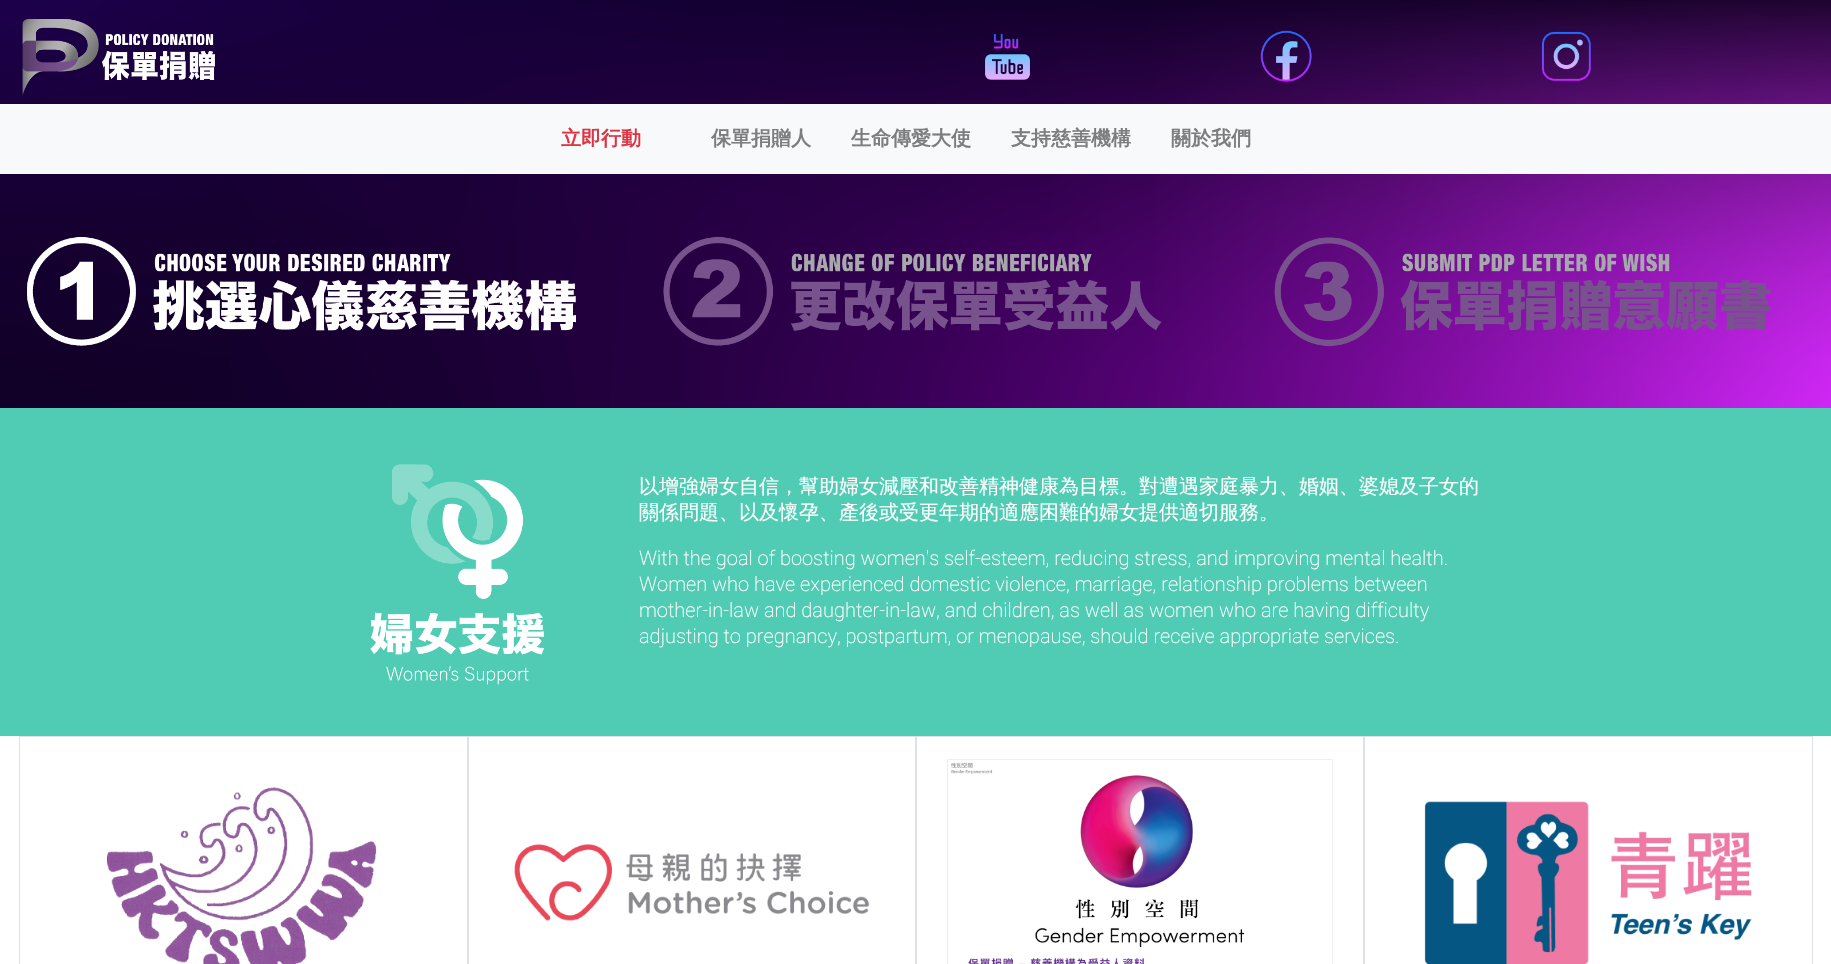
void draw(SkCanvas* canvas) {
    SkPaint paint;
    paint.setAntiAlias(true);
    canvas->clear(0xFFFFFFFF);
    canvas->drawImageRect(SkImages::DeferredFromEncodedData(SkData::MakeFromFileName("img1.png")), SkRect::MakeXYWH(0, 0, 1831, 104), SkSamplingOptions());
    canvas->drawImageRect(SkImages::DeferredFromEncodedData(SkData::MakeFromFileName("img2.png")), SkRect::MakeXYWH(22, 19, 194, 76), SkSamplingOptions());
    canvas->drawImageRect(SkImages::DeferredFromEncodedData(SkData::MakeFromFileName("img3.png")), SkRect::MakeXYWH(985, 33, 45, 47), SkSamplingOptions());
    canvas->drawImageRect(SkImages::DeferredFromEncodedData(SkData::MakeFromFileName("img4.png")), SkRect::MakeXYWH(1260, 30, 52, 52), SkSamplingOptions());
    canvas->drawImageRect(SkImages::DeferredFromEncodedData(SkData::MakeFromFileName("img5.png")), SkRect::MakeXYWH(1541, 31, 50, 50), SkSamplingOptions());
    paint.setColor(0xFFF8F9FA);
    canvas->drawRect(SkRect::MakeXYWH(0, 104, 1831, 70), paint);
    SkFont font1(fontMgr->matchFamilyStyle("WenQuanYi Zen Hei", SkFontStyle::Bold()), 20);
    font1.setSubpixel(true);
    paint.setColor(0xFFDC3545);
    canvas->drawString("立即行動", 561, 145, font1, paint);
    paint.setColor(0xFF7C7D7D);
    canvas->drawString("保單捐贈人", 711, 145, font1, paint);
    canvas->drawString("生命傳愛大使", 851, 145, font1, paint);
    canvas->drawString("支持慈善機構", 1011, 145, font1, paint);
    canvas->drawString("關於我們", 1171, 145, font1, paint);
    canvas->drawImageRect(SkImages::DeferredFromEncodedData(SkData::MakeFromFileName("img6.png")), SkRect::MakeXYWH(0, 174, 1831, 234), SkSamplingOptions());
    canvas->drawImageRect(SkImages::DeferredFromEncodedData(SkData::MakeFromFileName("img7.png")), SkRect::MakeXYWH(27, 237, 549, 109), SkSamplingOptions());
    canvas->drawImageRect(SkImages::DeferredFromEncodedData(SkData::MakeFromFileName("img8.png")), SkRect::MakeXYWH(663, 236, 499, 110), SkSamplingOptions());
    canvas->drawImageRect(SkImages::DeferredFromEncodedData(SkData::MakeFromFileName("img9.png")), SkRect::MakeXYWH(1274, 237, 497, 110), SkSamplingOptions());
    paint.setColor(0xFF50CBB4);
    canvas->drawRect(SkRect::MakeXYWH(0, 408, 1831, 328), paint);
    canvas->drawImageRect(SkImages::DeferredFromEncodedData(SkData::MakeFromFileName("img10.png")), SkRect::MakeXYWH(370, 464, 174, 221), SkSamplingOptions());
    SkFont font2(fontMgr->matchFamilyStyle("WenQuanYi Zen Hei", SkFontStyle(500, SkFontStyle::kNormal_Width, SkFontStyle::kUpright_Slant)), 20);
    font2.setSubpixel(true);
    paint.setColor(0xFFFFFFFF);
    canvas->drawString("以增強婦女自信，幫助婦女減壓和改善精神健康為目標。對遭遇家庭暴力、婚姻、婆媳及子女的", 639, 493, font2, paint);
    canvas->drawString("關係問題、以及懷孕、產後或受更年期的適應困難的婦女提供適切服務。", 639, 519, font2, paint);
    SkFont font3(fontMgr->matchFamilyStyle("Roboto", SkFontStyle(200, SkFontStyle::kNormal_Width, SkFontStyle::kUpright_Slant)), 20);
    font3.setSubpixel(true);
    canvas->drawString("With the goal of boosting women's self-esteem, reducing stress, and improving mental health.", 639, 565, font3, paint);
    canvas->drawString("Women who have experienced domestic violence, marriage, relationship problems between", 639, 591, font3, paint);
    canvas->drawString("mother-in-law and daughter-in-law, and children, as well as women who are having difficulty", 639, 617, font3, paint);
    canvas->drawString("adjusting to pregnancy, postpartum, or menopause, should receive appropriate services.", 639, 643, font3, paint);
    paint.setStyle(SkPaint::kStroke_Style);
    paint.setStrokeWidth(1);
    paint.setColor(0xFFDEE2E6);
    canvas->drawRect(SkRect::MakeXYWH(19.5f, 736.5f, 448, 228), paint);
    canvas->drawImageRect(SkImages::DeferredFromEncodedData(SkData::MakeFromFileName("img11.png")), SkRect::MakeXYWH(107, 787, 270, 177), SkSamplingOptions());
    canvas->drawRect(SkRect::MakeXYWH(468.5f, 736.5f, 447, 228), paint);
    canvas->drawImageRect(SkImages::DeferredFromEncodedData(SkData::MakeFromFileName("img12.png")), SkRect::MakeXYWH(514, 844, 356, 77), SkSamplingOptions());
    canvas->drawRect(SkRect::MakeXYWH(916.5f, 736.5f, 447, 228), paint);
    canvas->drawImageRect(SkImages::DeferredFromEncodedData(SkData::MakeFromFileName("img13.png")), SkRect::MakeXYWH(947, 759, 386, 205), SkSamplingOptions());
    canvas->drawRect(SkRect::MakeXYWH(1364.5f, 736.5f, 448, 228), paint);
    canvas->drawImageRect(SkImages::DeferredFromEncodedData(SkData::MakeFromFileName("img14.png")), SkRect::MakeXYWH(1424, 801, 328, 163), SkSamplingOptions());
}
